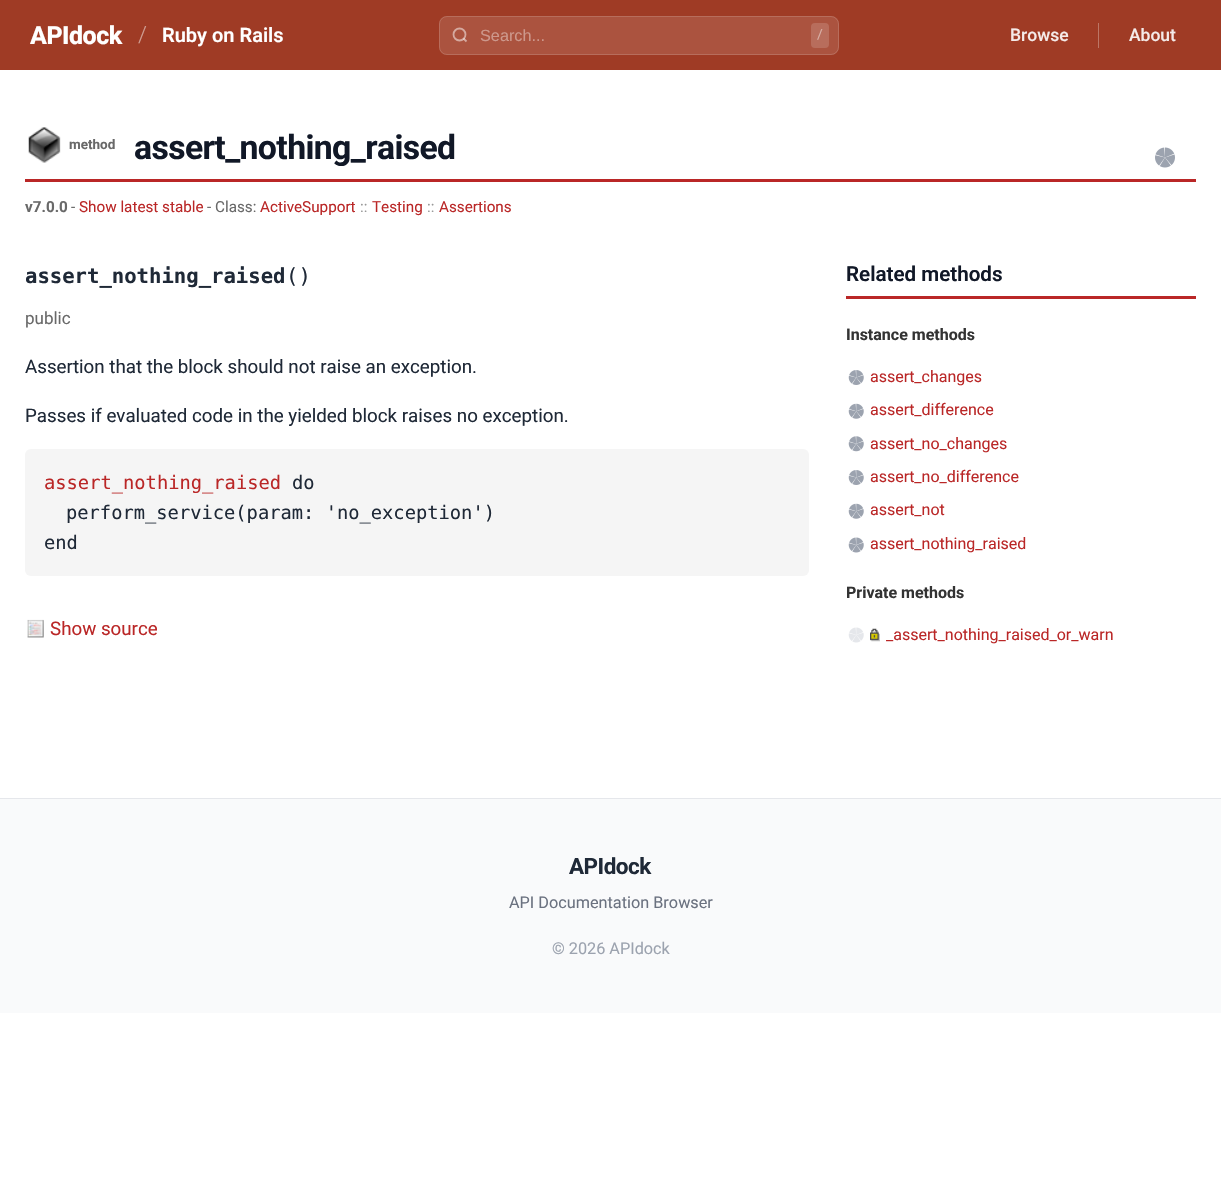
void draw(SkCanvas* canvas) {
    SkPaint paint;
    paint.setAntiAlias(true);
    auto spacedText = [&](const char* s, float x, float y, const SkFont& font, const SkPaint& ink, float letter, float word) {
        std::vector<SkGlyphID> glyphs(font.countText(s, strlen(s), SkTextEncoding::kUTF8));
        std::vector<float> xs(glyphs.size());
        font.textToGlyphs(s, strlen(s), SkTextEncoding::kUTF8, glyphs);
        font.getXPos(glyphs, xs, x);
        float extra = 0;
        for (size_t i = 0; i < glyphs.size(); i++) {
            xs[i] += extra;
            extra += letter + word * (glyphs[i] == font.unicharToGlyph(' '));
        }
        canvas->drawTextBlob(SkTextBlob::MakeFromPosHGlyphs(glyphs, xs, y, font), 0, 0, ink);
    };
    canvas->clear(0xFFFFFFFF);
    paint.setColor(0xFF9F3B25);
    canvas->drawRect(SkRect::MakeXYWH(0, 0, 1221, 70), paint);
    SkFont font1(fontMgr->matchFamilyStyle("Roboto", SkFontStyle(800, SkFontStyle::kNormal_Width, SkFontStyle::kUpright_Slant)), 25);
    font1.setSubpixel(true);
    paint.setColor(0xFFFFFFFF);
    spacedText("APIdock", 30, 44, font1, paint, -0.5f, 0);
    SkFont font2(fontMgr->matchFamilyStyle("Roboto", SkFontStyle(300, SkFontStyle::kNormal_Width, SkFontStyle::kUpright_Slant)), 22.5f);
    font2.setSubpixel(true);
    paint.setColor(0xFFCF9D92);
    canvas->drawString("/", 138, 42, font2, paint);
    SkFont font3(fontMgr->matchFamilyStyle("Roboto", SkFontStyle(600, SkFontStyle::kNormal_Width, SkFontStyle::kUpright_Slant)), 20);
    font3.setSubpixel(true);
    paint.setColor(0xFFFFFFFF);
    canvas->drawString("Ruby on Rails", 162, 42, font3, paint);
    paint.setColor(0xFFAB533F);
    canvas->drawRoundRect(SkRect::MakeXYWH(439, 16, 400, 39), 8, 8, paint);
    paint.setStyle(SkPaint::kStroke_Style);
    paint.setStrokeWidth(1);
    paint.setColor(0x26FFFFFF);
    canvas->drawRoundRect(SkRect::MakeXYWH(439.5f, 16.5f, 399, 38), 7.5f, 7.5f, paint);
    paint.setStrokeWidth(1.8f);
    paint.setColor(0xFFD5A99F);
    canvas->drawCircle(459.5f, 34.5f, 6, paint);
    paint.setColor(0x80FFFFFF);
    canvas->drawPath(SkPathBuilder().moveTo(466.5f, 41.5f).lineTo(463.5f, 38.5f).detach(), paint);
    SkFont font4(fontMgr->matchFamilyStyle("Liberation Sans", SkFontStyle::Normal()), 16.25f);
    font4.setSubpixel(true);
    paint.setStyle(SkPaint::kFill_Style);
    paint.setColor(0xFFCD988C);
    canvas->drawString("Search...", 480, 41, font4, paint);
    paint.setColor(0xFFB86D5C);
    canvas->drawRoundRect(SkRect::MakeXYWH(811, 23, 18, 25), 4, 4, paint);
    SkFont font5(fontMgr->matchFamilyStyle("Roboto", SkFontStyle::Normal()), 14);
    font5.setSubpixel(true);
    paint.setColor(0xFFD8AFA5);
    canvas->drawString("/", 817, 39, font5, paint);
    SkFont font6(fontMgr->matchFamilyStyle("Roboto", SkFontStyle(500, SkFontStyle::kNormal_Width, SkFontStyle::kUpright_Slant)), 17.5f);
    font6.setSubpixel(true);
    paint.setColor(0xFFF5EBE9);
    canvas->drawString("Browse", 1010, 41, font6, paint);
    paint.setColor(0xFFBC7666);
    canvas->drawRect(SkRect::MakeXYWH(1098, 23, 1, 25), paint);
    paint.setColor(0xFFF5EBE9);
    canvas->drawString("About", 1129, 41, font6, paint);
    paint.setColor(0xFFBA2727);
    canvas->drawRect(SkRect::MakeXYWH(25, 179, 1171, 3), paint);
    canvas->drawImageRect(SkImages::DeferredFromEncodedData(SkData::MakeFromFileName("img1.png")), SkRect::MakeXYWH(28, 127, 33, 36), SkSamplingOptions());
    SkFont font7(fontMgr->matchFamilyStyle("Roboto", SkFontStyle::Bold()), 13.5f);
    font7.setSubpixel(true);
    paint.setColor(0xFF696969);
    canvas->drawString("method", 69, 149, font7, paint);
    SkFont font8(fontMgr->matchFamilyStyle("Roboto", SkFontStyle::Bold()), 33.75f);
    font8.setSubpixel(true);
    paint.setColor(0xFF111827);
    spacedText("assert_nothing_raised", 134, 159, font8, paint, -0.6f, 0);
    canvas->drawImageRect(SkImages::DeferredFromEncodedData(SkData::MakeFromFileName("img2.png")), SkRect::MakeXYWH(1155, 147, 20, 21), SkSamplingOptions());
    SkFont font9(fontMgr->matchFamilyStyle("Roboto", SkFontStyle::Bold()), 15.25f);
    font9.setSubpixel(true);
    paint.setColor(0xFF696969);
    canvas->drawString("v7.0.0", 25, 212, font9, paint);
    SkFont font10(fontMgr->matchFamilyStyle("Roboto", SkFontStyle::Normal()), 15.25f);
    font10.setSubpixel(true);
    canvas->drawString("-", 71, 212, font10, paint);
    paint.setColor(0xFFBA2727);
    canvas->drawString("Show latest stable", 79, 212, font10, paint);
    paint.setColor(0xFF696969);
    canvas->drawString("- Class:", 207, 212, font10, paint);
    paint.setColor(0xFFBA2727);
    canvas->drawString("ActiveSupport", 260, 212, font10, paint);
    paint.setColor(0xFF999999);
    canvas->drawString("::", 360, 212, font10, paint);
    paint.setColor(0xFFBA2727);
    canvas->drawString("Testing", 372, 212, font10, paint);
    paint.setColor(0xFF999999);
    canvas->drawString("::", 427, 212, font10, paint);
    paint.setColor(0xFFBA2727);
    canvas->drawString("Assertions", 439, 212, font10, paint);
    SkFont font11(fontMgr->matchFamilyStyle("DejaVu Sans Mono", SkFontStyle::Bold()), 20.6f);
    font11.setSubpixel(true);
    paint.setColor(0xFF1F2937);
    canvas->drawString("assert_nothing_raised", 25, 283, font11, paint);
    SkFont font12(fontMgr->matchFamilyStyle("DejaVu Sans Mono", SkFontStyle::Normal()), 20.6f);
    font12.setSubpixel(true);
    canvas->drawString("()", 286, 283, font12, paint);
    SkFont font13(fontMgr->matchFamilyStyle("Roboto", SkFontStyle::Normal()), 17);
    font13.setSubpixel(true);
    paint.setColor(0xFF696969);
    canvas->drawString("public", 25, 324, font13, paint);
    SkFont font14(fontMgr->matchFamilyStyle("Roboto", SkFontStyle::Normal()), 18.75f);
    font14.setSubpixel(true);
    paint.setColor(0xFF1F2937);
    canvas->drawString("Assertion that the block should not raise an exception.", 25, 373, font14, paint);
    canvas->drawString("Passes if evaluated code in the yielded block raises no exception.", 25, 422, font14, paint);
    paint.setColor(0xFFF5F5F5);
    canvas->drawRoundRect(SkRect::MakeXYWH(25, 449, 784, 127), 6, 6, paint);
    SkFont font15(fontMgr->matchFamilyStyle("DejaVu Sans Mono", SkFontStyle::Normal()), 18.75f);
    font15.setSubpixel(true);
    paint.setColor(0xFFBA2727);
    canvas->drawString("assert_nothing_raised", 44, 489, font15, paint);
    paint.setColor(0xFF1F2937);
    canvas->drawString("do", 292, 489, font15, paint);
    canvas->drawString("perform_service(param: 'no_exception')", 66, 519, font15, paint);
    canvas->drawString("end", 44, 549, font15, paint);
    canvas->drawImageRect(SkImages::DeferredFromEncodedData(SkData::MakeFromFileName("img3.png")), SkRect::MakeXYWH(27, 619, 17, 19), SkSamplingOptions());
    paint.setColor(0xFFBA2727);
    canvas->drawString("Show source", 50, 635, font14, paint);
    canvas->drawRect(SkRect::MakeXYWH(846, 296, 350, 3), paint);
    SkFont font16(fontMgr->matchFamilyStyle("Roboto", SkFontStyle(600, SkFontStyle::kNormal_Width, SkFontStyle::kUpright_Slant)), 20.6f);
    font16.setSubpixel(true);
    paint.setColor(0xFF111827);
    canvas->drawString("Related methods", 846, 281, font16, paint);
    SkFont font17(fontMgr->matchFamilyStyle("Roboto", SkFontStyle::Bold()), 16);
    font17.setSubpixel(true);
    paint.setColor(0xFF333333);
    canvas->drawString("Instance methods", 846, 340, font17, paint);
    canvas->drawImageRect(SkImages::DeferredFromEncodedData(SkData::MakeFromFileName("img4.png")), SkRect::MakeXYWH(848, 370, 16, 15), SkSamplingOptions());
    SkFont font18(fontMgr->matchFamilyStyle("Roboto", SkFontStyle::Normal()), 16);
    font18.setSubpixel(true);
    paint.setColor(0xFFBA2727);
    canvas->drawString("assert_changes", 870, 382, font18, paint);
    canvas->drawImageRect(SkImages::DeferredFromEncodedData(SkData::MakeFromFileName("img5.png")), SkRect::MakeXYWH(848, 403, 16, 16), SkSamplingOptions());
    canvas->drawString("assert_difference", 870, 415, font18, paint);
    canvas->drawImageRect(SkImages::DeferredFromEncodedData(SkData::MakeFromFileName("img6.png")), SkRect::MakeXYWH(848, 436, 16, 16), SkSamplingOptions());
    canvas->drawString("assert_no_changes", 870, 449, font18, paint);
    canvas->drawImageRect(SkImages::DeferredFromEncodedData(SkData::MakeFromFileName("img4.png")), SkRect::MakeXYWH(848, 470, 16, 15), SkSamplingOptions());
    canvas->drawString("assert_no_difference", 870, 482, font18, paint);
    canvas->drawImageRect(SkImages::DeferredFromEncodedData(SkData::MakeFromFileName("img5.png")), SkRect::MakeXYWH(848, 503, 16, 16), SkSamplingOptions());
    canvas->drawString("assert_not", 870, 515, font18, paint);
    canvas->drawImageRect(SkImages::DeferredFromEncodedData(SkData::MakeFromFileName("img7.png")), SkRect::MakeXYWH(848, 537, 16, 16), SkSamplingOptions());
    canvas->drawString("assert_nothing_raised", 870, 549, font18, paint);
    paint.setColor(0xFF333333);
    canvas->drawString("Private methods", 846, 598, font17, paint);
    canvas->drawImageRect(SkImages::DeferredFromEncodedData(SkData::MakeFromFileName("img8.png")), SkRect::MakeXYWH(848, 627, 16, 16), SkSamplingOptions());
    canvas->drawImageRect(SkImages::DeferredFromEncodedData(SkData::MakeFromFileName("img9.png")), SkRect::MakeXYWH(870, 628, 10, 14), SkSamplingOptions());
    paint.setColor(0xFFBA2727);
    canvas->drawString("_assert_nothing_raised_or_warn", 886, 640, font18, paint);
    paint.setColor(0xFFF9FAFB);
    canvas->drawRect(SkRect::MakeXYWH(0, 799, 1221, 214), paint);
    paint.setColor(0xFFE5E7EB);
    canvas->drawRect(SkRect::MakeXYWH(0, 798, 1221, 1), paint);
    SkFont font19(fontMgr->matchFamilyStyle("Roboto", SkFontStyle::Bold()), 22.5f);
    font19.setSubpixel(true);
    paint.setColor(0xFF1F2937);
    spacedText("APIdock", 569, 874, font19, paint, -0.5f, 0);
    SkFont font20(fontMgr->matchFamilyStyle("Roboto", SkFontStyle::Normal()), 16.25f);
    font20.setSubpixel(true);
    paint.setColor(0xFF6B7280);
    canvas->drawString("API Documentation Browser", 509, 908, font20, paint);
    paint.setColor(0xFF9CA3AF);
    canvas->drawString("© 2026 APIdock", 552, 954, font20, paint);
}
